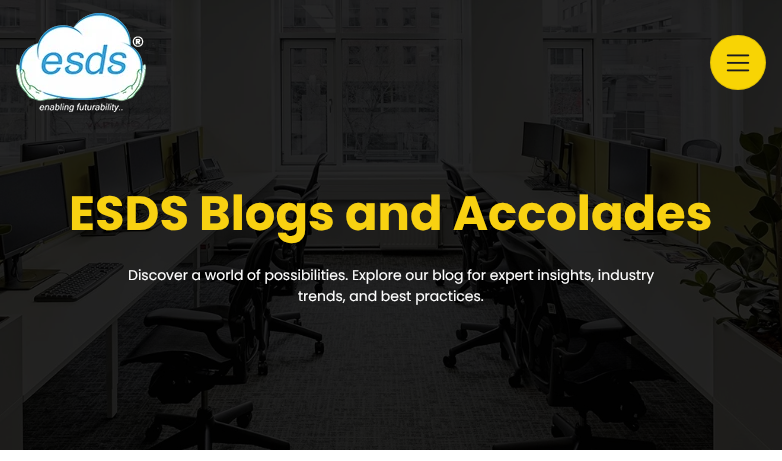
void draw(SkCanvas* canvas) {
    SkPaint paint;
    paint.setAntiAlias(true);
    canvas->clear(0xFFFFFFFF);
    canvas->drawImageRect(SkImages::DeferredFromEncodedData(SkData::MakeFromFileName("img3.png")), SkRect::MakeXYWH(0, 0, 782, 450), SkSamplingOptions());
    canvas->drawImageRect(SkImages::DeferredFromEncodedData(SkData::MakeFromFileName("img1.png")), SkRect::MakeXYWH(16, 13, 130, 99), SkSamplingOptions());
    paint.setColor(0xFFF8D404);
    canvas->drawRoundRect(SkRect::MakeXYWH(710, 35, 56, 55), 27.5f, 27.5f, paint);
    paint.setStyle(SkPaint::kStroke_Style);
    paint.setStrokeWidth(1);
    paint.setColor(0x1A000000);
    canvas->drawRoundRect(SkRect::MakeXYWH(710.5f, 35.5f, 55, 54), 27, 27, paint);
    canvas->drawImageRect(SkImages::DeferredFromEncodedData(SkData::MakeFromFileName("img2.png")), SkRect::MakeXYWH(726, 54, 24, 18), SkSamplingOptions());
    SkFont font1(fontMgr->matchFamilyStyle("Poppins", SkFontStyle::Bold()), 48);
    font1.setSubpixel(true);
    paint.setStyle(SkPaint::kFill_Style);
    paint.setColor(0xFFF8D111);
    canvas->drawString("ESDS Blogs and Accolades", 69, 230, font1, paint);
    SkFont font2(fontMgr->matchFamilyStyle("Poppins", SkFontStyle::Normal()), 14);
    font2.setSubpixel(true);
    paint.setColor(0xFFFFFFFF);
    canvas->drawString("Discover a world of possibilities. Explore our blog for expert insights, industry", 128, 280, font2, paint);
    canvas->drawString("trends, and best practices.", 298, 301, font2, paint);
}
